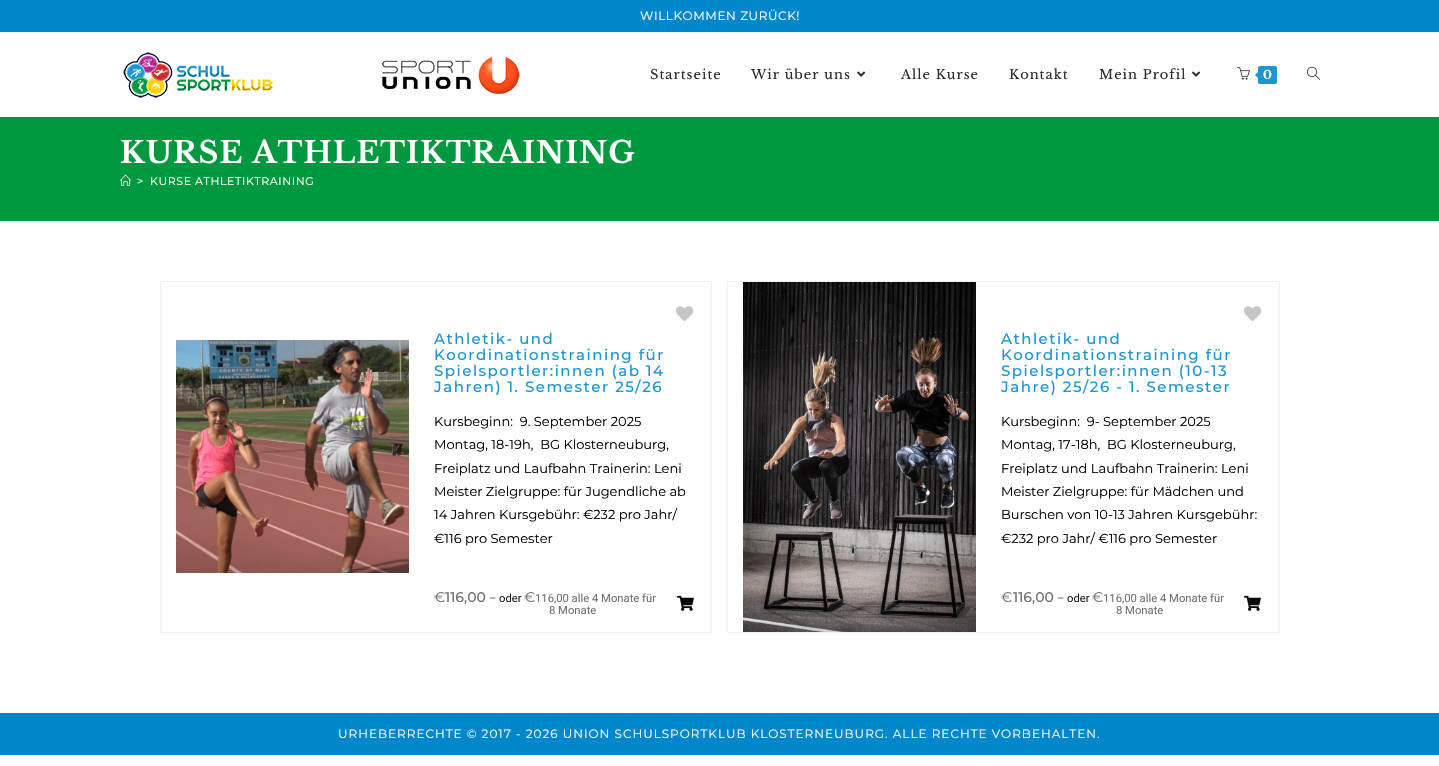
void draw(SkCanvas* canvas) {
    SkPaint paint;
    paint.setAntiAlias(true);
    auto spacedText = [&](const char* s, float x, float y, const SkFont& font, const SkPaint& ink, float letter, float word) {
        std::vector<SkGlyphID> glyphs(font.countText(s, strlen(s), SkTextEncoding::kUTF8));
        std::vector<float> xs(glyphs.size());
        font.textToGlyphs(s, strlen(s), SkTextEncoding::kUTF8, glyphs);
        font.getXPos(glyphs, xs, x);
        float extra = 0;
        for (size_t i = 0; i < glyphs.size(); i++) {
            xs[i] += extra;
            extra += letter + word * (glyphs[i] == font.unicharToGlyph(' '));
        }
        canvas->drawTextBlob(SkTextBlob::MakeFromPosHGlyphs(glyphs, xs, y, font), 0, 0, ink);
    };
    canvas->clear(0xFFFFFFFF);
    paint.setColor(0xFF0087CB);
    canvas->drawRect(SkRect::MakeXYWH(0, 0, 1439, 32), paint);
    paint.setColor(0xFFF1F1F1);
    canvas->drawRect(SkRect::MakeXYWH(0, 32, 1439, 1), paint);
    SkFont font1(fontMgr->matchFamilyStyle("Montserrat", SkFontStyle::Normal()), 12);
    font1.setSubpixel(true);
    paint.setColor(0xFFFFFFFF);
    spacedText("WILLKOMMEN ZURÜCK!", 640, 20, font1, paint, 0.6f, 0);
    canvas->drawImageRect(SkImages::DeferredFromEncodedData(SkData::MakeFromFileName("img1.png")), SkRect::MakeXYWH(123, 52, 397, 46), SkSamplingOptions());
    SkFont font2(fontMgr->matchFamilyStyle("Libre Baskerville", SkFontStyle::Normal()), 13);
    font2.setSubpixel(true);
    paint.setColor(0xFF2C2C2C);
    spacedText("Startseite", 650, 79, font2, paint, 1, 0);
    spacedText("Wir über uns", 751, 79, font2, paint, 1, 0);
    canvas->drawImageRect(SkImages::DeferredFromEncodedData(SkData::MakeFromFileName("img2.png")), SkRect::MakeXYWH(857, 71, 9, 6), SkSamplingOptions());
    spacedText("Alle Kurse", 901, 79, font2, paint, 1, 0);
    spacedText("Kontakt", 1009, 79, font2, paint, 1, 0);
    spacedText("Mein Profil", 1099, 79, font2, paint, 1, 0);
    canvas->drawImageRect(SkImages::DeferredFromEncodedData(SkData::MakeFromFileName("img2.png")), SkRect::MakeXYWH(1192, 71, 9, 6), SkSamplingOptions());
    canvas->drawImageRect(SkImages::DeferredFromEncodedData(SkData::MakeFromFileName("img3.png")), SkRect::MakeXYWH(1237, 67, 13, 13), SkSamplingOptions());
    paint.setColor(0xFF1D95D1);
    canvas->drawRoundRect(SkRect::MakeXYWH(1258, 66, 19, 18), 2, 2, paint);
    canvas->drawPath(SkPathBuilder().moveTo(1260, 70).lineTo(1260, 80).lineTo(1255, 75).close().detach(), paint);
    SkFont font3(fontMgr->matchFamilyStyle("Libre Baskerville", SkFontStyle(600, SkFontStyle::kNormal_Width, SkFontStyle::kUpright_Slant)), 12);
    font3.setSubpixel(true);
    paint.setColor(0xFFFFFFFF);
    canvas->drawString("0", 1263, 79, font3, paint);
    canvas->drawImageRect(SkImages::DeferredFromEncodedData(SkData::MakeFromFileName("img4.png")), SkRect::MakeXYWH(1307, 66, 13, 14), SkSamplingOptions());
    paint.setColor(0xFF00993F);
    canvas->drawRect(SkRect::MakeXYWH(0, 117, 1439, 104), paint);
    SkFont font4(fontMgr->matchFamilyStyle("Libre Baskerville", SkFontStyle::Bold()), 30);
    font4.setSubpixel(true);
    paint.setColor(0xFFFFFFFF);
    spacedText("KURSE ATHLETIKTRAINING", 120, 163, font4, paint, 1, 0);
    canvas->drawImageRect(SkImages::DeferredFromEncodedData(SkData::MakeFromFileName("img5.png")), SkRect::MakeXYWH(120, 174, 11, 12), SkSamplingOptions());
    SkFont font5(fontMgr->matchFamilyStyle("Montserrat", SkFontStyle::Normal()), 11);
    font5.setSubpixel(true);
    spacedText(">", 137, 185, font5, paint, 0.6f, 0);
    spacedText("KURSE ATHLETIKTRAINING", 150, 185, font5, paint, 0.6f, 0);
    paint.setStyle(SkPaint::kStroke_Style);
    paint.setStrokeWidth(1);
    paint.setColor(0xFFEFEFEF);
    canvas->drawRect(SkRect::MakeXYWH(160.5f, 281.5f, 551, 351), paint);
    canvas->drawImageRect(SkImages::DeferredFromEncodedData(SkData::MakeFromFileName("img6.png")), SkRect::MakeXYWH(176, 340, 233, 233), SkSamplingOptions());
    canvas->drawImageRect(SkImages::DeferredFromEncodedData(SkData::MakeFromFileName("img7.png")), SkRect::MakeXYWH(675, 306, 19, 16), SkSamplingOptions());
    SkFont font6(fontMgr->matchFamilyStyle("Montserrat", SkFontStyle(500, SkFontStyle::kNormal_Width, SkFontStyle::kUpright_Slant)), 15);
    font6.setSubpixel(true);
    paint.setStyle(SkPaint::kFill_Style);
    paint.setColor(0xFF1D95D1);
    spacedText("Athletik- und", 434, 344, font6, paint, 1.5f, 0);
    spacedText("Koordinationstraining für", 434, 360, font6, paint, 1.5f, 0);
    spacedText("Spielsportler:innen (ab 14", 434, 376, font6, paint, 1.5f, 0);
    spacedText("Jahren) 1. Semester 25/26", 434, 392, font6, paint, 1.5f, 0);
    SkFont font7(fontMgr->matchFamilyStyle("Montserrat", SkFontStyle::Normal()), 13);
    font7.setSubpixel(true);
    paint.setColor(0xFF000000);
    canvas->drawString("Kursbeginn:  9. September 2025", 434, 426, font7, paint);
    canvas->drawString("Montag, 18-19h,  BG Klosterneuburg,", 434, 449, font7, paint);
    canvas->drawString("Freiplatz und Laufbahn Trainerin: Leni", 434, 473, font7, paint);
    canvas->drawString("Meister Zielgruppe: für Jugendliche ab", 434, 496, font7, paint);
    canvas->drawString("14 Jahren Kursgebühr: €232 pro Jahr/", 434, 519, font7, paint);
    canvas->drawString("€116 pro Semester", 434, 543, font7, paint);
    SkFont font8(fontMgr->matchFamilyStyle("Montserrat", SkFontStyle::Normal()), 14);
    font8.setSubpixel(true);
    paint.setColor(0xFF6F6F6F);
    canvas->drawString("€", 434, 602, font8, paint);
    SkFont font9(fontMgr->matchFamilyStyle("Montserrat", SkFontStyle(500, SkFontStyle::kNormal_Width, SkFontStyle::kUpright_Slant)), 14);
    font9.setSubpixel(true);
    canvas->drawString("116,00", 445, 602, font9, paint);
    SkFont font10(fontMgr->matchFamilyStyle("Roboto", SkFontStyle::Normal()), 11.25f);
    font10.setSubpixel(true);
    canvas->drawString("–", 489, 602, font10, paint);
    paint.setColor(0xFF212121);
    canvas->drawString("oder", 499, 602, font10, paint);
    paint.setColor(0xFF6F6F6F);
    canvas->drawString("€", 524, 602, font8, paint);
    canvas->drawString("116,00 alle 4 Monate für", 535, 602, font10, paint);
    canvas->drawString("8 Monate", 549, 614, font10, paint);
    canvas->drawImageRect(SkImages::DeferredFromEncodedData(SkData::MakeFromFileName("img8.png")), SkRect::MakeXYWH(677, 595, 17, 16), SkSamplingOptions());
    paint.setStyle(SkPaint::kStroke_Style);
    paint.setColor(0xFFEFEFEF);
    canvas->drawRect(SkRect::MakeXYWH(727.5f, 281.5f, 552, 351), paint);
    canvas->drawImageRect(SkImages::DeferredFromEncodedData(SkData::MakeFromFileName("img9.png")), SkRect::MakeXYWH(743, 282, 233, 350), SkSamplingOptions());
    canvas->drawImageRect(SkImages::DeferredFromEncodedData(SkData::MakeFromFileName("img7.png")), SkRect::MakeXYWH(1243, 306, 19, 16), SkSamplingOptions());
    paint.setStyle(SkPaint::kFill_Style);
    paint.setColor(0xFF1D95D1);
    spacedText("Athletik- und", 1001, 344, font6, paint, 1.5f, 0);
    spacedText("Koordinationstraining für", 1001, 360, font6, paint, 1.5f, 0);
    spacedText("Spielsportler:innen (10-13", 1001, 376, font6, paint, 1.5f, 0);
    spacedText("Jahre) 25/26 - 1. Semester", 1001, 392, font6, paint, 1.5f, 0);
    paint.setColor(0xFF000000);
    canvas->drawString("Kursbeginn:  9- September 2025", 1001, 426, font7, paint);
    canvas->drawString("Montag, 17-18h,  BG Klosterneuburg,", 1001, 449, font7, paint);
    canvas->drawString("Freiplatz und Laufbahn Trainerin: Leni", 1001, 473, font7, paint);
    canvas->drawString("Meister Zielgruppe: für Mädchen und", 1001, 496, font7, paint);
    canvas->drawString("Burschen von 10-13 Jahren Kursgebühr:", 1001, 519, font7, paint);
    canvas->drawString("€232 pro Jahr/ €116 pro Semester", 1001, 543, font7, paint);
    paint.setColor(0xFF6F6F6F);
    canvas->drawString("€", 1001, 602, font8, paint);
    canvas->drawString("116,00", 1013, 602, font9, paint);
    canvas->drawString("–", 1057, 602, font10, paint);
    paint.setColor(0xFF212121);
    canvas->drawString("oder", 1067, 602, font10, paint);
    paint.setColor(0xFF6F6F6F);
    canvas->drawString("€", 1092, 602, font8, paint);
    canvas->drawString("116,00 alle 4 Monate für", 1103, 602, font10, paint);
    canvas->drawString("8 Monate", 1116, 614, font10, paint);
    canvas->drawImageRect(SkImages::DeferredFromEncodedData(SkData::MakeFromFileName("img8.png")), SkRect::MakeXYWH(1244, 595, 17, 16), SkSamplingOptions());
    paint.setColor(0xFF0087CB);
    canvas->drawRect(SkRect::MakeXYWH(0, 713, 1439, 42), paint);
    paint.setColor(0xFFF9F9F9);
    spacedText("URHEBERRECHTE © 2017 - 2026 UNION SCHULSPORTKLUB KLOSTERNEUBURG. ALLE RECHTE VORBEHALTEN.", 338, 738, font1, paint, 1, 0);
}
